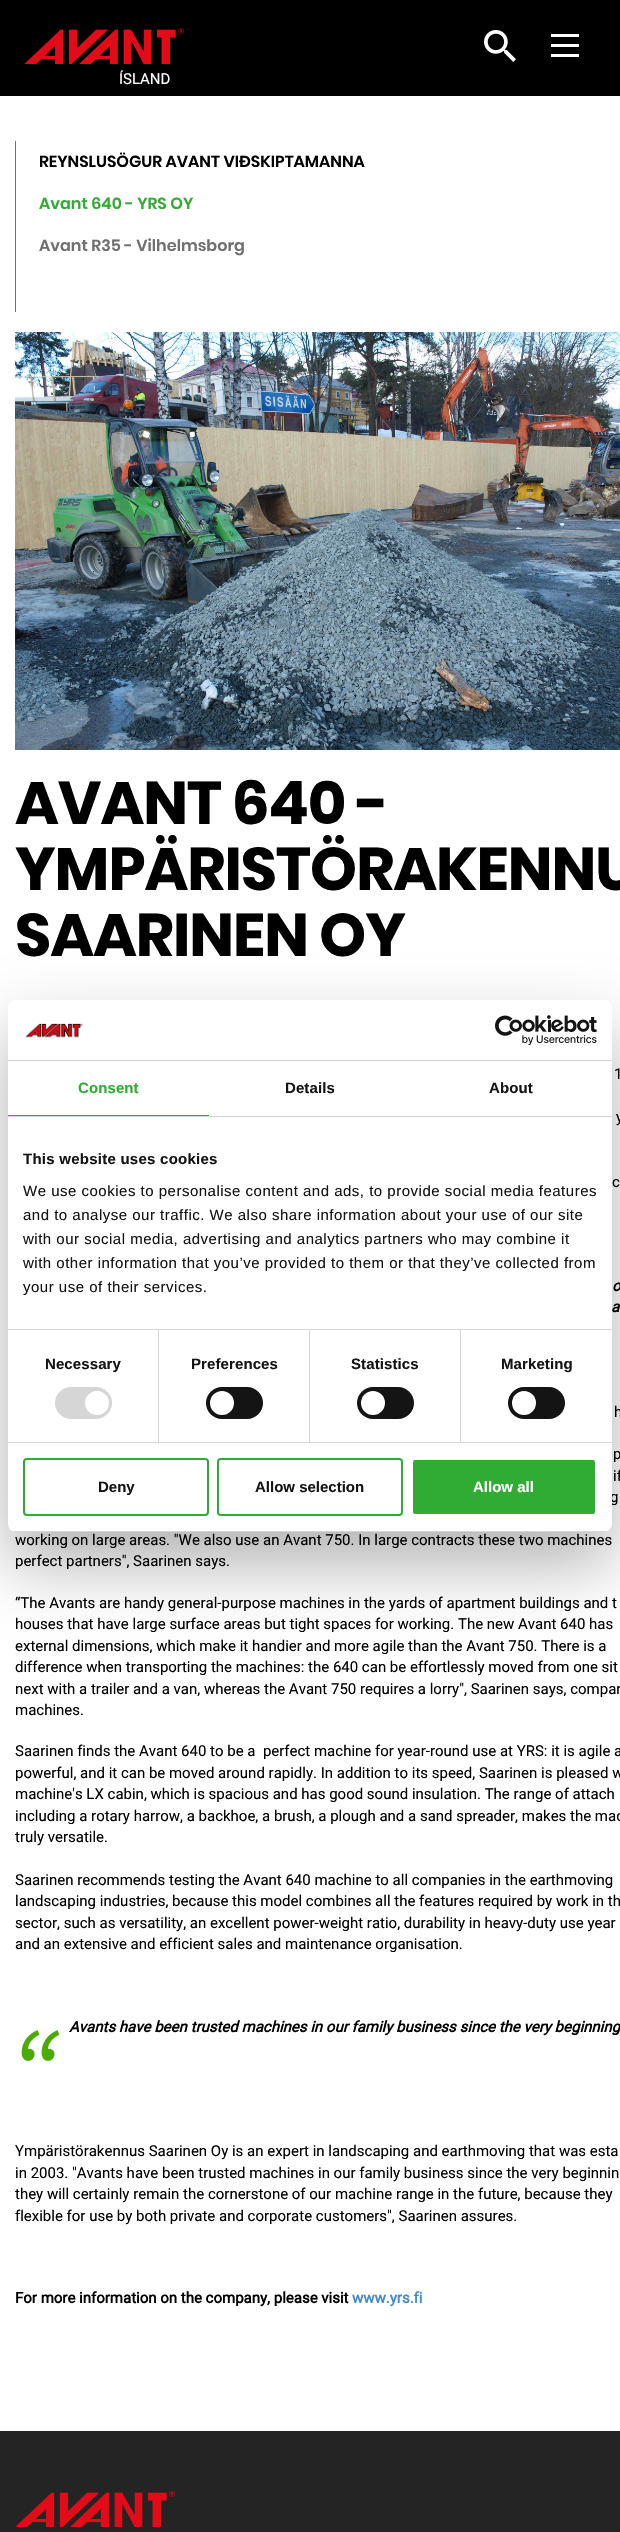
void draw(SkCanvas* canvas) {
    SkPaint paint;
    paint.setAntiAlias(true);
    auto spacedText = [&](const char* s, float x, float y, const SkFont& font, const SkPaint& ink, float letter, float word) {
        std::vector<SkGlyphID> glyphs(font.countText(s, strlen(s), SkTextEncoding::kUTF8));
        std::vector<float> xs(glyphs.size());
        font.textToGlyphs(s, strlen(s), SkTextEncoding::kUTF8, glyphs);
        font.getXPos(glyphs, xs, x);
        float extra = 0;
        for (size_t i = 0; i < glyphs.size(); i++) {
            xs[i] += extra;
            extra += letter + word * (glyphs[i] == font.unicharToGlyph(' '));
        }
        canvas->drawTextBlob(SkTextBlob::MakeFromPosHGlyphs(glyphs, xs, y, font), 0, 0, ink);
    };
    canvas->clear(0xFFFFFFFF);
    paint.setColor(0xFF000000);
    canvas->drawRect(SkRect::MakeXYWH(0, 0, 620, 96), paint);
    canvas->drawImageRect(SkImages::DeferredFromEncodedData(SkData::MakeFromFileName("img1.png")), SkRect::MakeXYWH(484, 30, 32, 32), SkSamplingOptions());
    paint.setColor(0xFFFFFFFF);
    canvas->drawRect(SkRect::MakeXYWH(551, 34, 28, 3), paint);
    canvas->drawRect(SkRect::MakeXYWH(551, 44, 28, 3), paint);
    canvas->drawRect(SkRect::MakeXYWH(551, 54, 28, 3), paint);
    canvas->drawImageRect(SkImages::DeferredFromEncodedData(SkData::MakeFromFileName("img2.png")), SkRect::MakeXYWH(24, 28, 160, 36), SkSamplingOptions());
    SkFont font1(fontMgr->matchFamilyStyle("Roboto", SkFontStyle::Normal()), 15);
    font1.setSubpixel(true);
    canvas->drawString("ÍSLAND", 119, 84, font1, paint);
    paint.setColor(0xFF707070);
    canvas->drawRect(SkRect::MakeXYWH(15, 141, 1, 171), paint);
    SkFont font2(fontMgr->matchFamilyStyle("Poppins", SkFontStyle(600, SkFontStyle::kNormal_Width, SkFontStyle::kUpright_Slant)), 16);
    font2.setSubpixel(true);
    paint.setColor(0xFF000000);
    canvas->drawString("REYNSLUSÖGUR AVANT VIÐSKIPTAMANNA", 39, 167, font2, paint);
    paint.setColor(0xFF30AB33);
    canvas->drawString("Avant 640 - YRS OY", 39, 209, font2, paint);
    paint.setColor(0xFF707070);
    canvas->drawString("Avant R35 - Vilhelmsborg", 39, 251, font2, paint);
    canvas->drawImageRect(SkImages::DeferredFromEncodedData(SkData::MakeFromFileName("img3.png")), SkRect::MakeXYWH(15, 332, 605, 418), SkSamplingOptions());
    SkFont font3(fontMgr->matchFamilyStyle("Poppins", SkFontStyle::Bold()), 60);
    font3.setSubpixel(true);
    paint.setColor(0xFF000000);
    spacedText("AVANT 640 -", 15, 824, font3, paint, -1, 0);
    spacedText("YMPÄRISTÖRAKENNU", 15, 890, font3, paint, -1, 0);
    spacedText("SAARINEN OY", 15, 956, font3, paint, -1, 0);
    canvas->drawString("1", 614, 1079, font1, paint);
    canvas->drawString("y", 616, 1122, font1, paint);
    canvas->drawString("c", 612, 1187, font1, paint);
    SkFont font4(fontMgr->matchFamilyStyle("Roboto", SkFontStyle::BoldItalic()), 15);
    font4.setSubpixel(true);
    canvas->drawString("o", 612, 1291, font4, paint);
    canvas->drawString("a", 611, 1312, font4, paint);
    canvas->drawString("h", 614, 1417, font1, paint);
    canvas->drawString("p", 613, 1459, font1, paint);
    canvas->drawString("if", 613, 1481, font1, paint);
    canvas->drawString("g", 610, 1502, font1, paint);
    canvas->drawString("working on large areas. \"We also use an Avant 750. In large contracts these two machines", 15, 1545, font1, paint);
    canvas->drawString("perfect partners\", Saarinen says.", 15, 1566, font1, paint);
    canvas->drawString("“The Avants are handy general-purpose machines in the yards of apartment buildings and t", 15, 1608, font1, paint);
    canvas->drawString("houses that have large surface areas but tight spaces for working. The new Avant 640 has", 15, 1629, font1, paint);
    canvas->drawString("external dimensions, which make it handier and more agile than the Avant 750. There is a", 15, 1651, font1, paint);
    canvas->drawString("difference when transporting the machines: the 640 can be effortlessly moved from one sit", 15, 1672, font1, paint);
    canvas->drawString("next with a trailer and a van, whereas the Avant 750 requires a lorry\", Saarinen says, compar", 15, 1694, font1, paint);
    canvas->drawString("machines.", 15, 1715, font1, paint);
    canvas->drawString("Saarinen finds the Avant 640 to be a  perfect machine for year-round use at YRS: it is agile a", 15, 1756, font1, paint);
    canvas->drawString("powerful, and it can be moved around rapidly. In addition to its speed, Saarinen is pleased w", 15, 1778, font1, paint);
    canvas->drawString("machine's LX cabin, which is spacious and has good sound insulation. The range of attach", 15, 1799, font1, paint);
    canvas->drawString("including a rotary harrow, a backhoe, a brush, a plough and a sand spreader, makes the mac", 15, 1821, font1, paint);
    canvas->drawString("truly versatile.", 15, 1842, font1, paint);
    canvas->drawString("Saarinen recommends testing the Avant 640 machine to all companies in the earthmoving", 15, 1885, font1, paint);
    canvas->drawString("landscaping industries, because this model combines all the features required by work in th", 15, 1906, font1, paint);
    canvas->drawString("sector, such as versatility, an excellent power-weight ratio, durability in heavy-duty use year", 15, 1928, font1, paint);
    canvas->drawString("and an extensive and efficient sales and maintenance organisation.", 15, 1949, font1, paint);
    canvas->drawString("Avants have been trusted machines in our family business since the very beginning", 69, 2032, font4, paint);
    canvas->drawImageRect(SkImages::DeferredFromEncodedData(SkData::MakeFromFileName("img4.png")), SkRect::MakeXYWH(21, 2030, 39, 31), SkSamplingOptions());
    canvas->drawString("Ympäristörakennus Saarinen Oy is an expert in landscaping and earthmoving that was esta", 15, 2156, font1, paint);
    canvas->drawString("in 2003. \"Avants have been trusted machines in our family business since the very beginnin", 15, 2178, font1, paint);
    canvas->drawString("they will certainly remain the cornerstone of our machine range in the future, because they", 15, 2199, font1, paint);
    canvas->drawString("flexible for use by both private and corporate customers\", Saarinen assures.", 15, 2221, font1, paint);
    SkFont font5(fontMgr->matchFamilyStyle("Roboto", SkFontStyle::Bold()), 15);
    font5.setSubpixel(true);
    canvas->drawString("For more information on the company, please visit", 15, 2303, font5, paint);
    paint.setColor(0xFF428BCA);
    canvas->drawString("www.yrs.fi", 352, 2303, font5, paint);
    paint.setColor(0xFF242424);
    canvas->drawRect(SkRect::MakeXYWH(0, 2431, 620, 101), paint);
    canvas->drawImageRect(SkImages::DeferredFromEncodedData(SkData::MakeFromFileName("img5.png")), SkRect::MakeXYWH(15, 2491, 160, 36), SkSamplingOptions());
    paint.setColor(0x4D000000);
    paint.setMaskFilter(SkMaskFilter::MakeBlur(kNormal_SkBlurStyle, 34));
    canvas->drawRoundRect(SkRect::MakeXYWH(8, 1032, 604, 532), 8, 8, paint);
    paint.setMaskFilter(nullptr);
    paint.setColor(0xFFFFFFFF);
    canvas->drawRoundRect(SkRect::MakeXYWH(8, 1000, 604, 532), 8, 8, paint);
    paint.setColor(0xFFD6D6D6);
    canvas->drawRect(SkRect::MakeXYWH(8, 1060, 604, 1), paint);
    canvas->drawImageRect(SkImages::DeferredFromEncodedData(SkData::MakeFromFileName("img6.png")), SkRect::MakeXYWH(25, 1023, 59, 15), SkSamplingOptions());
    canvas->drawImageRect(SkImages::DeferredFromEncodedData(SkData::MakeFromFileName("img7.png")), SkRect::MakeXYWH(495, 1015, 102, 30), SkSamplingOptions());
    canvas->drawRect(SkRect::MakeXYWH(8, 1116, 604, 1), paint);
    paint.setColor(0xFF30AB33);
    canvas->drawRect(SkRect::MakeXYWH(8, 1115, 201, 1), paint);
    SkFont font6(fontMgr->matchFamilyStyle("Liberation Sans", SkFontStyle::Bold()), 15);
    font6.setSubpixel(true);
    spacedText("Consent", 78, 1093, font6, paint, 0.1f, 0);
    paint.setColor(0xFF141414);
    spacedText("Details", 285, 1093, font6, paint, 0.1f, 0);
    spacedText("About", 489, 1093, font6, paint, 0.1f, 0);
    paint.setColor(0xFFD6D6D6);
    canvas->drawRect(SkRect::MakeXYWH(8, 1329, 604, 1), paint);
    paint.setColor(0xFF141414);
    spacedText("This website uses cookies", 23, 1164, font6, paint, 0.25f, 0);
    SkFont font7(fontMgr->matchFamilyStyle("Liberation Sans", SkFontStyle::Normal()), 15);
    font7.setSubpixel(true);
    spacedText("We use cookies to personalise content and ads, to provide social media features", 23, 1196, font7, paint, 0.5f, 0);
    spacedText("and to analyse our traffic. We also share information about your use of our site", 23, 1220, font7, paint, 0.5f, 0);
    spacedText("with our social media, advertising and analytics partners who may combine it", 23, 1244, font7, paint, 0.5f, 0);
    spacedText("with other information that you’ve provided to them or that they’ve collected from", 23, 1268, font7, paint, 0.5f, 0);
    spacedText("your use of their services.", 23, 1292, font7, paint, 0.5f, 0);
    paint.setColor(0xFFD6D6D6);
    canvas->drawRect(SkRect::MakeXYWH(8, 1442, 604, 1), paint);
    canvas->drawRect(SkRect::MakeXYWH(158, 1330, 1, 112), paint);
    paint.setColor(0xFF141414);
    spacedText("Necessary", 45, 1369, font6, paint, 0.1f, 0);
    paint.setColor(0xFFD6D6D6);
    canvas->drawRoundRect(SkRect::MakeXYWH(55, 1387, 57, 32), 16, 16, paint);
    paint.setColor(0xFFFFFFFF);
    canvas->drawCircle(97, 1403, 12, paint);
    paint.setColor(0xFFD6D6D6);
    canvas->drawRect(SkRect::MakeXYWH(309, 1330, 1, 112), paint);
    paint.setColor(0xFF141414);
    spacedText("Preferences", 191, 1369, font6, paint, 0.1f, 0);
    canvas->drawRoundRect(SkRect::MakeXYWH(206, 1387, 57, 32), 16, 16, paint);
    paint.setColor(0xFFFFFFFF);
    canvas->drawCircle(222, 1403, 12, paint);
    paint.setColor(0xFFD6D6D6);
    canvas->drawRect(SkRect::MakeXYWH(460, 1330, 1, 112), paint);
    paint.setColor(0xFF141414);
    spacedText("Statistics", 351, 1369, font6, paint, 0.1f, 0);
    canvas->drawRoundRect(SkRect::MakeXYWH(357, 1387, 57, 32), 16, 16, paint);
    paint.setColor(0xFFFFFFFF);
    canvas->drawCircle(373, 1403, 12, paint);
    paint.setColor(0xFF141414);
    spacedText("Marketing", 501, 1369, font6, paint, 0.1f, 0);
    canvas->drawRoundRect(SkRect::MakeXYWH(508, 1387, 57, 32), 16, 16, paint);
    paint.setColor(0xFFFFFFFF);
    canvas->drawCircle(524, 1403, 12, paint);
    canvas->save();
    canvas->clipPath(SkPathBuilder().moveTo(16, 1000).lineTo(604, 1000).cubicTo(608.5f, 1000, 612, 1003.5f, 612, 1008).lineTo(612, 1524).cubicTo(612, 1528.5f, 608.5f, 1532, 604, 1532).lineTo(16, 1532).cubicTo(11.5f, 1532, 8, 1528.5f, 8, 1524).lineTo(8, 1008).cubicTo(8, 1003.5f, 11.5f, 1000, 16, 1000).close().detach(), true);
    paint.setColor(0xFFD6D6D6);
    canvas->drawRect(SkRect::MakeXYWH(8, 1531, 604, 1), paint);
    canvas->restore();
    paint.setStyle(SkPaint::kStroke_Style);
    paint.setStrokeWidth(2);
    paint.setColor(0xFF30AB33);
    canvas->drawRoundRect(SkRect::MakeXYWH(24, 1459, 184, 56), 3, 3, paint);
    paint.setStyle(SkPaint::kFill_Style);
    paint.setColor(0xFF141414);
    canvas->drawString("Deny", 98, 1492, font6, paint);
    paint.setStyle(SkPaint::kStroke_Style);
    paint.setColor(0xFF30AB33);
    canvas->drawRoundRect(SkRect::MakeXYWH(218, 1459, 184, 56), 3, 3, paint);
    paint.setStyle(SkPaint::kFill_Style);
    paint.setColor(0xFF141414);
    canvas->drawString("Allow selection", 255, 1492, font6, paint);
    paint.setColor(0xFF30AB33);
    canvas->drawRoundRect(SkRect::MakeXYWH(412, 1459, 184, 56), 3, 3, paint);
    paint.setStyle(SkPaint::kStroke_Style);
    paint.setColor(0xFFFFFFFF);
    canvas->drawRoundRect(SkRect::MakeXYWH(412, 1459, 184, 56), 3, 3, paint);
    paint.setStyle(SkPaint::kFill_Style);
    canvas->drawString("Allow all", 473, 1492, font6, paint);
}
